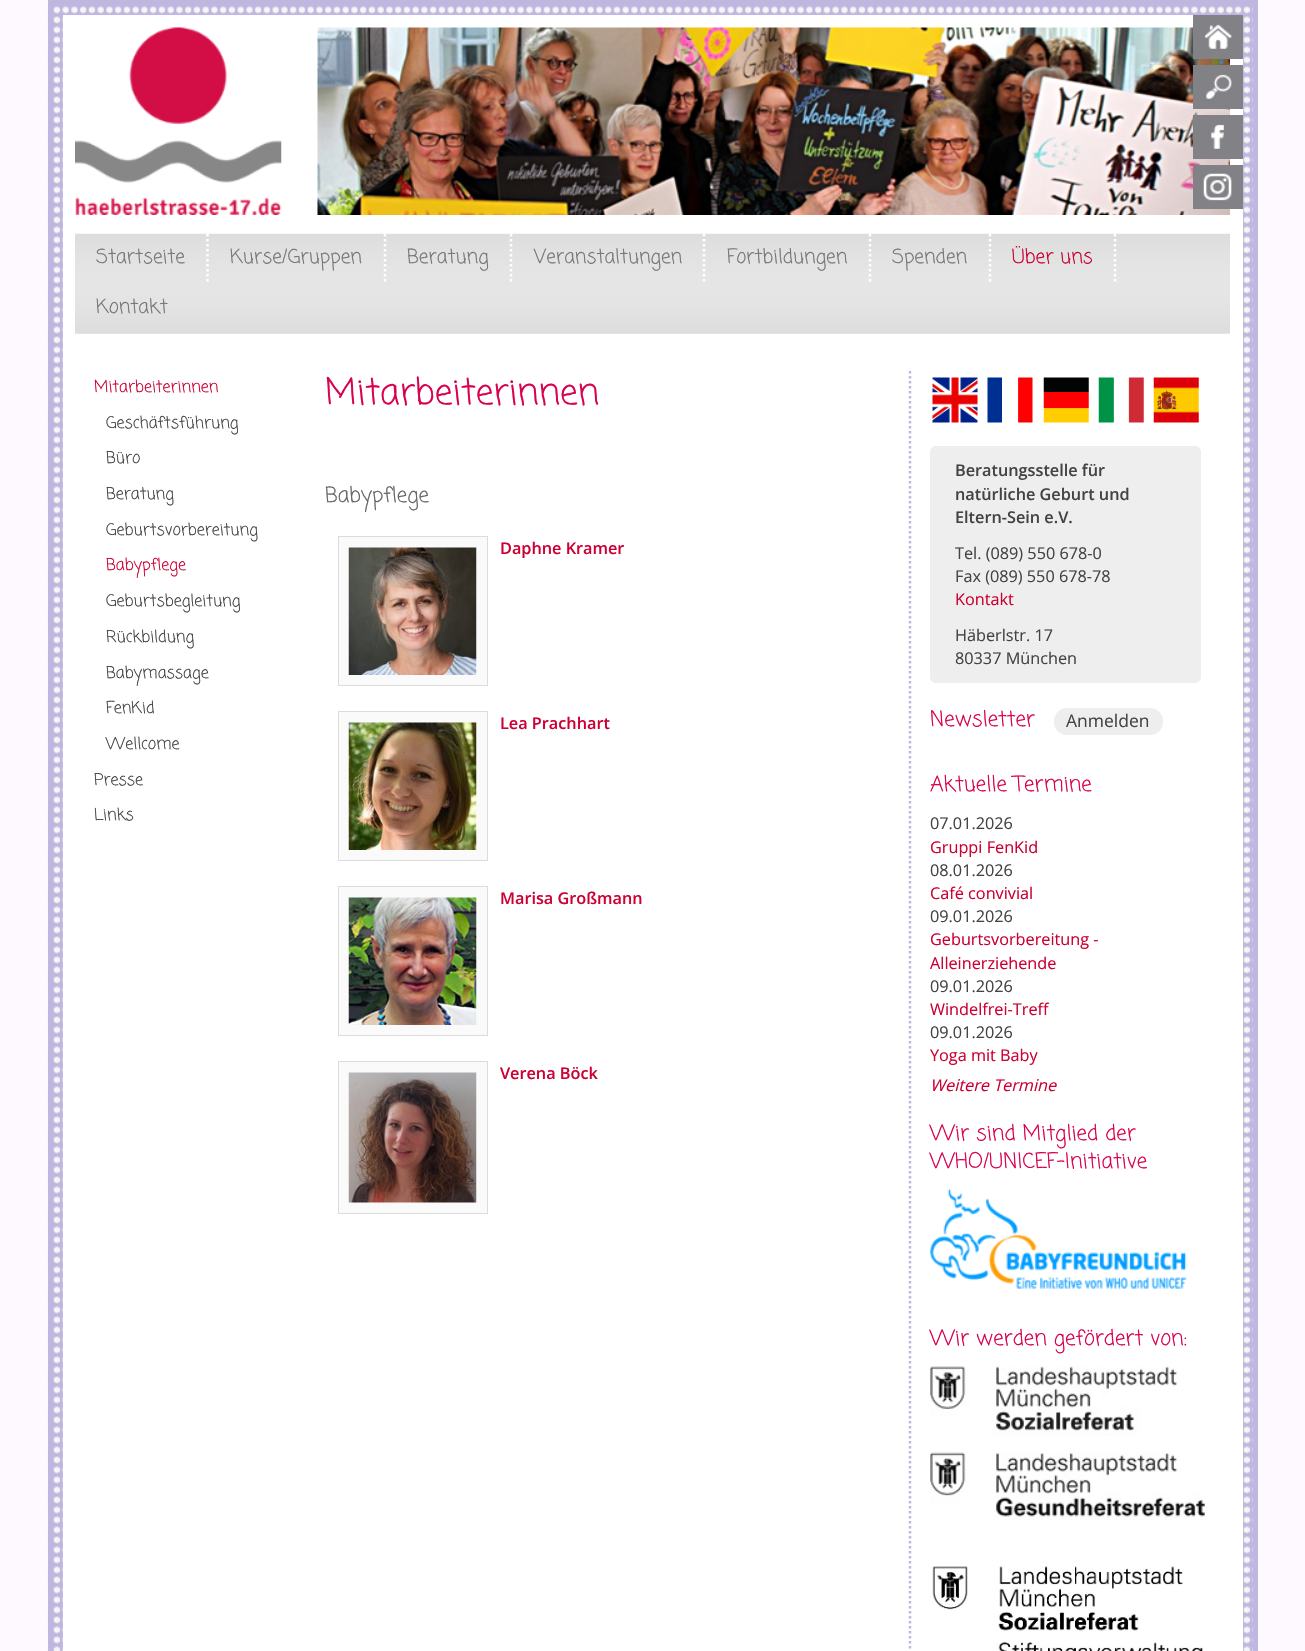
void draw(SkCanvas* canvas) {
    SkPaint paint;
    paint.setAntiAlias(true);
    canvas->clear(0xFFFDF9FF);
    paint.setColor(0xFFC0B7E0);
    canvas->drawRect(SkRect::MakeXYWH(53, 5, 1200, 1646), paint);
    canvas->drawImageRect(SkImages::DeferredFromEncodedData(SkData::MakeFromFileName("img1.png")), SkRect::MakeXYWH(47, 0, 1206, 1651), SkSamplingOptions());
    paint.setStyle(SkPaint::kStroke_Style);
    paint.setStrokeWidth(5);
    canvas->drawRect(SkRect::MakeXYWH(50.5f, 2.5f, 1205, 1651), paint);
    paint.setStyle(SkPaint::kFill_Style);
    paint.setColor(0xFFFFFFFF);
    canvas->drawRect(SkRect::MakeXYWH(63, 15, 1180, 1636), paint);
    canvas->drawImageRect(SkImages::DeferredFromEncodedData(SkData::MakeFromFileName("img7.png")), SkRect::MakeXYWH(317, 27, 913, 188), SkSamplingOptions());
    paint.setColor(0xFF828186);
    canvas->drawRect(SkRect::MakeXYWH(1193, 15, 50, 44), paint);
    canvas->drawImageRect(SkImages::DeferredFromEncodedData(SkData::MakeFromFileName("img2.png")), SkRect::MakeXYWH(1204, 24, 28, 25), SkSamplingOptions());
    canvas->drawRect(SkRect::MakeXYWH(1193, 65, 50, 44), paint);
    canvas->drawImageRect(SkImages::DeferredFromEncodedData(SkData::MakeFromFileName("img3.png")), SkRect::MakeXYWH(1206, 74, 26, 25), SkSamplingOptions());
    canvas->drawRect(SkRect::MakeXYWH(1193, 115, 50, 44), paint);
    canvas->drawImageRect(SkImages::DeferredFromEncodedData(SkData::MakeFromFileName("img4.png")), SkRect::MakeXYWH(1211, 124, 13, 25), SkSamplingOptions());
    canvas->drawRect(SkRect::MakeXYWH(1193, 165, 50, 44), paint);
    canvas->drawImageRect(SkImages::DeferredFromEncodedData(SkData::MakeFromFileName("img5.png")), SkRect::MakeXYWH(1203, 173, 29, 28), SkSamplingOptions());
    canvas->drawImageRect(SkImages::DeferredFromEncodedData(SkData::MakeFromFileName("img6.png")), SkRect::MakeXYWH(75, 27, 207, 188), SkSamplingOptions());
    canvas->drawImageRect(SkImages::DeferredFromEncodedData(SkData::MakeFromFileName("img8.png")), SkRect::MakeXYWH(75, 233, 1155, 101), SkSamplingOptions());
    paint.setStyle(SkPaint::kStroke_Style);
    paint.setStrokeWidth(2.5f);
    paint.setColor(0xFFFFFFFF);
    paint.setPathEffect(SkDashPathEffect::Make({{2.5f, 2.5f}}, 0));
    canvas->drawPath(SkPathBuilder().moveTo(207.5f, 234).lineTo(207.5f, 284).detach(), paint);
    paint.setPathEffect(nullptr);
    SkFont font1(fontMgr->matchFamilyStyle("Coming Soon", SkFontStyle::Normal()), 19.5f);
    font1.setSubpixel(true);
    paint.setStyle(SkPaint::kFill_Style);
    paint.setColor(0xFF777777);
    canvas->drawString("Startseite", 96, 263, font1, paint);
    paint.setStyle(SkPaint::kStroke_Style);
    paint.setColor(0xFFFFFFFF);
    paint.setPathEffect(SkDashPathEffect::Make({{2.5f, 2.5f}}, 0));
    canvas->drawPath(SkPathBuilder().moveTo(385, 234).lineTo(385, 284).detach(), paint);
    paint.setPathEffect(nullptr);
    paint.setStyle(SkPaint::kFill_Style);
    paint.setColor(0xFF777777);
    canvas->drawString("Kurse/Gruppen", 230, 263, font1, paint);
    paint.setStyle(SkPaint::kStroke_Style);
    paint.setColor(0xFFFFFFFF);
    paint.setPathEffect(SkDashPathEffect::Make({{2.5f, 2.5f}}, 0));
    canvas->drawPath(SkPathBuilder().moveTo(511, 234).lineTo(511, 284).detach(), paint);
    paint.setPathEffect(nullptr);
    paint.setStyle(SkPaint::kFill_Style);
    paint.setColor(0xFF777777);
    canvas->drawString("Beratung", 407, 263, font1, paint);
    paint.setStyle(SkPaint::kStroke_Style);
    paint.setColor(0xFFFFFFFF);
    paint.setPathEffect(SkDashPathEffect::Make({{2.5f, 2.5f}}, 0));
    canvas->drawPath(SkPathBuilder().moveTo(704, 234).lineTo(704, 284).detach(), paint);
    paint.setPathEffect(nullptr);
    paint.setStyle(SkPaint::kFill_Style);
    paint.setColor(0xFF777777);
    canvas->drawString("Veranstaltungen", 534, 263, font1, paint);
    paint.setStyle(SkPaint::kStroke_Style);
    paint.setColor(0xFFFFFFFF);
    paint.setPathEffect(SkDashPathEffect::Make({{2.5f, 2.5f}}, 0));
    canvas->drawPath(SkPathBuilder().moveTo(870, 234).lineTo(870, 284).detach(), paint);
    paint.setPathEffect(nullptr);
    paint.setStyle(SkPaint::kFill_Style);
    paint.setColor(0xFF777777);
    canvas->drawString("Fortbildungen", 727, 263, font1, paint);
    paint.setStyle(SkPaint::kStroke_Style);
    paint.setColor(0xFFFFFFFF);
    paint.setPathEffect(SkDashPathEffect::Make({{2.5f, 2.5f}}, 0));
    canvas->drawPath(SkPathBuilder().moveTo(990, 234).lineTo(990, 284).detach(), paint);
    paint.setPathEffect(nullptr);
    paint.setStyle(SkPaint::kFill_Style);
    paint.setColor(0xFF777777);
    canvas->drawString("Spenden", 892, 263, font1, paint);
    paint.setStyle(SkPaint::kStroke_Style);
    paint.setColor(0xFFFFFFFF);
    paint.setPathEffect(SkDashPathEffect::Make({{2.5f, 2.5f}}, 0));
    canvas->drawPath(SkPathBuilder().moveTo(1115, 234).lineTo(1115, 284).detach(), paint);
    paint.setPathEffect(nullptr);
    paint.setStyle(SkPaint::kFill_Style);
    paint.setColor(0xFFCC0033);
    canvas->drawString("Über uns", 1012, 263, font1, paint);
    paint.setColor(0xFF777777);
    canvas->drawString("Kontakt", 96, 313, font1, paint);
    SkFont font2(fontMgr->matchFamilyStyle("Coming Soon", SkFontStyle::Normal()), 16.25f);
    font2.setSubpixel(true);
    paint.setColor(0xFFCC0033);
    canvas->drawString("Mitarbeiterinnen", 94, 392, font2, paint);
    paint.setColor(0xFF434343);
    canvas->drawString("Geschäftsführung", 106, 428, font2, paint);
    canvas->drawString("Büro", 106, 463, font2, paint);
    canvas->drawString("Beratung", 106, 499, font2, paint);
    canvas->drawString("Geburtsvorbereitung", 106, 535, font2, paint);
    paint.setColor(0xFFCC0033);
    canvas->drawString("Babypflege", 106, 570, font2, paint);
    paint.setColor(0xFF434343);
    canvas->drawString("Geburtsbegleitung", 106, 606, font2, paint);
    canvas->drawString("Rückbildung", 106, 642, font2, paint);
    canvas->drawString("Babymassage", 106, 678, font2, paint);
    canvas->drawString("FenKid", 106, 713, font2, paint);
    canvas->drawString("Wellcome", 106, 749, font2, paint);
    canvas->drawString("Presse", 94, 785, font2, paint);
    canvas->drawString("Links", 94, 820, font2, paint);
    SkFont font3(fontMgr->matchFamilyStyle("Coming Soon", SkFontStyle::Normal()), 35.75f);
    font3.setSubpixel(true);
    paint.setColor(0xFFD90250);
    canvas->drawString("Mitarbeiterinnen", 325, 404, font3, paint);
    SkFont font4(fontMgr->matchFamilyStyle("Coming Soon", SkFontStyle::Normal()), 21.1f);
    font4.setSubpixel(true);
    paint.setColor(0xFF666666);
    canvas->drawString("Babypflege", 325, 502, font4, paint);
    paint.setColor(0xFFFAFAFA);
    canvas->drawRect(SkRect::MakeXYWH(338.5f, 536.5f, 149, 149), paint);
    paint.setStyle(SkPaint::kStroke_Style);
    paint.setStrokeWidth(1);
    paint.setColor(0xFFDCDCDC);
    canvas->drawRect(SkRect::MakeXYWH(338.5f, 536.5f, 149, 149), paint);
    canvas->drawImageRect(SkImages::DeferredFromEncodedData(SkData::MakeFromFileName("img9.png")), SkRect::MakeXYWH(348, 547, 129, 128), SkSamplingOptions());
    SkFont font5(fontMgr->matchFamilyStyle("Open Sans", SkFontStyle(600, SkFontStyle::kNormal_Width, SkFontStyle::kUpright_Slant)), 16.25f);
    font5.setSubpixel(true);
    paint.setStyle(SkPaint::kFill_Style);
    paint.setColor(0xFFCC0033);
    canvas->drawString("Daphne Kramer", 500, 554, font5, paint);
    paint.setColor(0xFFFAFAFA);
    canvas->drawRect(SkRect::MakeXYWH(338.5f, 711.5f, 149, 149), paint);
    paint.setStyle(SkPaint::kStroke_Style);
    paint.setColor(0xFFDCDCDC);
    canvas->drawRect(SkRect::MakeXYWH(338.5f, 711.5f, 149, 149), paint);
    canvas->drawImageRect(SkImages::DeferredFromEncodedData(SkData::MakeFromFileName("img10.png")), SkRect::MakeXYWH(348, 722, 129, 128), SkSamplingOptions());
    paint.setStyle(SkPaint::kFill_Style);
    paint.setColor(0xFFCC0033);
    canvas->drawString("Lea Prachhart", 500, 729, font5, paint);
    paint.setColor(0xFFFAFAFA);
    canvas->drawRect(SkRect::MakeXYWH(338.5f, 886.5f, 149, 149), paint);
    paint.setStyle(SkPaint::kStroke_Style);
    paint.setColor(0xFFDCDCDC);
    canvas->drawRect(SkRect::MakeXYWH(338.5f, 886.5f, 149, 149), paint);
    canvas->drawImageRect(SkImages::DeferredFromEncodedData(SkData::MakeFromFileName("img11.png")), SkRect::MakeXYWH(348, 897, 129, 128), SkSamplingOptions());
    paint.setStyle(SkPaint::kFill_Style);
    paint.setColor(0xFFCC0033);
    canvas->drawString("Marisa Großmann", 500, 904, font5, paint);
    paint.setColor(0xFFFAFAFA);
    canvas->drawRect(SkRect::MakeXYWH(338.5f, 1061.5f, 149, 152), paint);
    paint.setStyle(SkPaint::kStroke_Style);
    paint.setColor(0xFFDCDCDC);
    canvas->drawRect(SkRect::MakeXYWH(338.5f, 1061.5f, 149, 152), paint);
    canvas->drawImageRect(SkImages::DeferredFromEncodedData(SkData::MakeFromFileName("img12.png")), SkRect::MakeXYWH(348, 1072, 129, 131), SkSamplingOptions());
    paint.setStyle(SkPaint::kFill_Style);
    paint.setColor(0xFFCC0033);
    canvas->drawString("Verena Böck", 500, 1079, font5, paint);
    paint.setStyle(SkPaint::kStroke_Style);
    paint.setStrokeWidth(2.5f);
    paint.setColor(0xFFC0B7E0);
    paint.setPathEffect(SkDashPathEffect::Make({{2.5f, 2.5f}}, 0));
    canvas->drawPath(SkPathBuilder().moveTo(910, 371).lineTo(910, 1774).detach(), paint);
    paint.setPathEffect(nullptr);
    canvas->drawImageRect(SkImages::DeferredFromEncodedData(SkData::MakeFromFileName("img13.png")), SkRect::MakeXYWH(932, 377, 46, 46), SkSamplingOptions());
    canvas->drawImageRect(SkImages::DeferredFromEncodedData(SkData::MakeFromFileName("img14.png")), SkRect::MakeXYWH(987, 377, 46, 46), SkSamplingOptions());
    canvas->drawImageRect(SkImages::DeferredFromEncodedData(SkData::MakeFromFileName("img15.png")), SkRect::MakeXYWH(1043, 377, 46, 46), SkSamplingOptions());
    canvas->drawImageRect(SkImages::DeferredFromEncodedData(SkData::MakeFromFileName("img16.png")), SkRect::MakeXYWH(1098, 377, 46, 46), SkSamplingOptions());
    canvas->drawImageRect(SkImages::DeferredFromEncodedData(SkData::MakeFromFileName("img17.png")), SkRect::MakeXYWH(1153, 377, 46, 46), SkSamplingOptions());
    paint.setStyle(SkPaint::kFill_Style);
    paint.setColor(0xFFEEEEEE);
    canvas->drawRoundRect(SkRect::MakeXYWH(930, 446, 271, 237), 6, 6, paint);
    paint.setColor(0xFF434343);
    canvas->drawString("Beratungsstelle für", 955, 476, font5, paint);
    canvas->drawString("natürliche Geburt und", 955, 500, font5, paint);
    canvas->drawString("Eltern-Sein e.V.", 955, 523, font5, paint);
    SkFont font6(fontMgr->matchFamilyStyle("Open Sans", SkFontStyle::Normal()), 16.25f);
    font6.setSubpixel(true);
    canvas->drawString("Tel. (089) 550 678-0", 955, 559, font6, paint);
    canvas->drawString("Fax (089) 550 678-78", 955, 582, font6, paint);
    paint.setColor(0xFFCC0033);
    canvas->drawString("Kontakt", 955, 605, font6, paint);
    paint.setColor(0xFF434343);
    canvas->drawString("Häberlstr. 17", 955, 641, font6, paint);
    canvas->drawString("80337 München", 955, 664, font6, paint);
    paint.setColor(0xFFD90250);
    canvas->drawString("Newsletter", 930, 726, font4, paint);
    paint.setColor(0xFFEEEEEE);
    canvas->drawRoundRect(SkRect::MakeXYWH(1054, 708, 109, 27), 13, 13, paint);
    SkFont font7(fontMgr->matchFamilyStyle("Open Sans", SkFontStyle::Normal()), 17.5f);
    font7.setSubpixel(true);
    paint.setColor(0xFF434343);
    canvas->drawString("Anmelden", 1066, 727, font7, paint);
    paint.setColor(0xFFD90250);
    canvas->drawString("Aktuelle Termine", 930, 791, font4, paint);
    paint.setColor(0xFF434343);
    canvas->drawString("07.01.2026", 930, 829, font6, paint);
    paint.setColor(0xFFCC0033);
    canvas->drawString("Gruppi FenKid", 930, 853, font6, paint);
    paint.setColor(0xFF434343);
    canvas->drawString("08.01.2026", 930, 876, font6, paint);
    paint.setColor(0xFFCC0033);
    canvas->drawString("Café convivial", 930, 899, font6, paint);
    paint.setColor(0xFF434343);
    canvas->drawString("09.01.2026", 930, 922, font6, paint);
    paint.setColor(0xFFCC0033);
    canvas->drawString("Geburtsvorbereitung -", 930, 945, font6, paint);
    canvas->drawString("Alleinerziehende", 930, 969, font6, paint);
    paint.setColor(0xFF434343);
    canvas->drawString("09.01.2026", 930, 992, font6, paint);
    paint.setColor(0xFFCC0033);
    canvas->drawString("Windelfrei-Treff", 930, 1015, font6, paint);
    paint.setColor(0xFF434343);
    canvas->drawString("09.01.2026", 930, 1038, font6, paint);
    paint.setColor(0xFFCC0033);
    canvas->drawString("Yoga mit Baby", 930, 1061, font6, paint);
    SkFont font8(fontMgr->matchFamilyStyle("Open Sans", SkFontStyle::Italic()), 16.25f);
    font8.setSubpixel(true);
    canvas->drawString("Weitere Termine", 930, 1091, font8, paint);
    paint.setColor(0xFFD90250);
    canvas->drawString("Wir sind Mitglied der", 930, 1140, font4, paint);
    canvas->drawString("WHO/UNICEF-Initiative", 930, 1168, font4, paint);
    canvas->drawImageRect(SkImages::DeferredFromEncodedData(SkData::MakeFromFileName("img18.png")), SkRect::MakeXYWH(930, 1188, 257, 101), SkSamplingOptions());
    canvas->drawString("Wir werden gefördert von:", 930, 1345, font4, paint);
    canvas->drawImageRect(SkImages::DeferredFromEncodedData(SkData::MakeFromFileName("img19.png")), SkRect::MakeXYWH(930, 1366, 248, 70), SkSamplingOptions());
    canvas->drawImageRect(SkImages::DeferredFromEncodedData(SkData::MakeFromFileName("img20.png")), SkRect::MakeXYWH(930, 1452, 275, 68), SkSamplingOptions());
    canvas->drawImageRect(SkImages::DeferredFromEncodedData(SkData::MakeFromFileName("img21.png")), SkRect::MakeXYWH(932, 1566, 271, 85), SkSamplingOptions());
}
